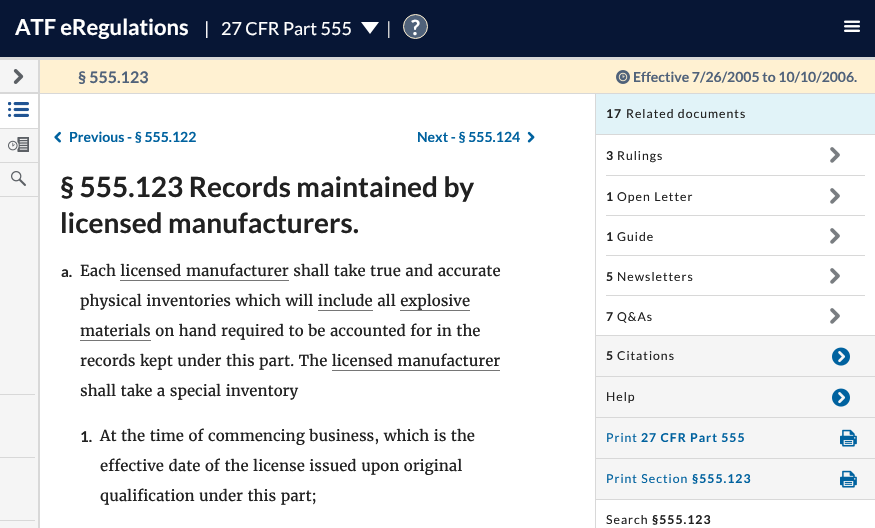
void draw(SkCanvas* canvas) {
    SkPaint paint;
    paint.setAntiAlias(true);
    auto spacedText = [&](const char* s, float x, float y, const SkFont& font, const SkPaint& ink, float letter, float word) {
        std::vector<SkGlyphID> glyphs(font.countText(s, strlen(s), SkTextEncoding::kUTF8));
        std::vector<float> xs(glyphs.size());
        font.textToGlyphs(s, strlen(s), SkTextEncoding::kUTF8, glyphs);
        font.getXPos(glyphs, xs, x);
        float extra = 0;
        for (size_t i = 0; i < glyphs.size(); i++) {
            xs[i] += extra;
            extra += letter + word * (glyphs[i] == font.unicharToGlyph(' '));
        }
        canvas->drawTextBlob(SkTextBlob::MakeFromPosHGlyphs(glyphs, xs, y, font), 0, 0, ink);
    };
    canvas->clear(0xFFFFFFFF);
    paint.setColor(0xFF071635);
    canvas->drawRect(SkRect::MakeXYWH(0, 0, 875, 57), paint);
    paint.setColor(0xFFD8D8D8);
    canvas->drawRect(SkRect::MakeXYWH(0, 57, 875, 3), paint);
    SkFont font1(fontMgr->matchFamilyStyle("Lato", SkFontStyle::Bold()), 22);
    font1.setSubpixel(true);
    paint.setColor(0xFFFFFFFF);
    canvas->drawString("ATF eRegulations", 15, 35, font1, paint);
    SkFont font2(fontMgr->matchFamilyStyle("Lato", SkFontStyle::Normal()), 18);
    font2.setSubpixel(true);
    canvas->drawString("|", 204, 35, font2, paint);
    canvas->drawString("27 CFR Part 555", 221, 35, font2, paint);
    canvas->drawPath(SkPathBuilder().moveTo(361, 22).lineTo(379, 22).lineTo(370, 34).close().detach(), paint);
    paint.setColor(0xFFD8D8D8);
    canvas->drawString("|", 386, 35, font2, paint);
    paint.setColor(0xFF50627A);
    canvas->drawCircle(415.5f, 26.5f, 12, paint);
    paint.setStyle(SkPaint::kStroke_Style);
    paint.setStrokeWidth(1);
    paint.setColor(0xFFFFF1D2);
    canvas->drawCircle(415.5f, 26.5f, 12, paint);
    SkFont font3(fontMgr->matchFamilyStyle("Lato", SkFontStyle::Bold()), 21);
    font3.setSubpixel(true);
    paint.setStyle(SkPaint::kFill_Style);
    paint.setColor(0xFFFFFFFF);
    canvas->drawString("?", 411, 35, font3, paint);
    canvas->drawImageRect(SkImages::DeferredFromEncodedData(SkData::MakeFromFileName("img1.png")), SkRect::MakeXYWH(844, 20, 16, 12), SkSamplingOptions());
    paint.setColor(0xFFFFF1D2);
    canvas->drawRect(SkRect::MakeXYWH(40, 60, 835, 33), paint);
    paint.setColor(0xFFD8D8D8);
    canvas->drawRect(SkRect::MakeXYWH(40, 93, 835, 1), paint);
    paint.setColor(0xFFF5F5F5);
    canvas->drawRect(SkRect::MakeXYWH(0, 60, 38, 136), paint);
    paint.setColor(0xFFD8D8D8);
    canvas->drawRect(SkRect::MakeXYWH(38, 60, 2, 468), paint);
    canvas->drawRect(SkRect::MakeXYWH(0, 92, 38, 2), paint);
    canvas->drawImageRect(SkImages::DeferredFromEncodedData(SkData::MakeFromFileName("img2.png")), SkRect::MakeXYWH(13, 69, 11, 15), SkSamplingOptions());
    canvas->drawRect(SkRect::MakeXYWH(0, 128, 38, 1), paint);
    paint.setColor(0xFFFFFFFF);
    canvas->drawRect(SkRect::MakeXYWH(0, 94, 38, 34), paint);
    canvas->drawImageRect(SkImages::DeferredFromEncodedData(SkData::MakeFromFileName("img3.png")), SkRect::MakeXYWH(8, 102, 21, 15), SkSamplingOptions());
    paint.setColor(0xFFD8D8D8);
    canvas->drawRect(SkRect::MakeXYWH(0, 162, 38, 1), paint);
    canvas->drawImageRect(SkImages::DeferredFromEncodedData(SkData::MakeFromFileName("img4.png")), SkRect::MakeXYWH(8, 137, 21, 15), SkSamplingOptions());
    canvas->drawRect(SkRect::MakeXYWH(0, 196, 38, 1), paint);
    canvas->drawImageRect(SkImages::DeferredFromEncodedData(SkData::MakeFromFileName("img5.png")), SkRect::MakeXYWH(11, 171, 15, 15), SkSamplingOptions());
    SkFont font4(fontMgr->matchFamilyStyle("Lato", SkFontStyle::Bold()), 16);
    font4.setSubpixel(true);
    paint.setColor(0xFF50627A);
    canvas->drawString("§ 555.123", 78, 83, font4, paint);
    canvas->drawImageRect(SkImages::DeferredFromEncodedData(SkData::MakeFromFileName("img6.png")), SkRect::MakeXYWH(616, 70, 14, 14), SkSamplingOptions());
    SkFont font5(fontMgr->matchFamilyStyle("Lato", SkFontStyle::Bold()), 14);
    font5.setSubpixel(true);
    canvas->drawString("Effective 7/26/2005 to 10/10/2006.", 633, 82, font5, paint);
    paint.setColor(0xFFF5F5F5);
    canvas->drawRect(SkRect::MakeXYWH(0, 197, 38, 331), paint);
    paint.setColor(0xFFD8D8D8);
    canvas->drawRect(SkRect::MakeXYWH(0, 394, 35, 1), paint);
    canvas->drawRect(SkRect::MakeXYWH(0, 457, 35, 1), paint);
    canvas->drawRect(SkRect::MakeXYWH(0, 520, 35, 1), paint);
    canvas->drawImageRect(SkImages::DeferredFromEncodedData(SkData::MakeFromFileName("img7.png")), SkRect::MakeXYWH(54, 131, 7, 12), SkSamplingOptions());
    paint.setColor(0xFF00629F);
    canvas->drawString("Previous - § 555.122", 69, 142, font5, paint);
    canvas->drawString("Next - § 555.124", 417, 142, font5, paint);
    canvas->drawImageRect(SkImages::DeferredFromEncodedData(SkData::MakeFromFileName("img8.png")), SkRect::MakeXYWH(527, 131, 8, 12), SkSamplingOptions());
    SkFont font6(fontMgr->matchFamilyStyle("Lato", SkFontStyle::Bold()), 28);
    font6.setSubpixel(true);
    paint.setColor(0xFF212121);
    canvas->drawString("§ 555.123 Records maintained by", 60, 197, font6, paint);
    canvas->drawString("licensed manufacturers.", 60, 233, font6, paint);
    SkFont font7(fontMgr->matchFamilyStyle("Lato", SkFontStyle::Bold()), 15);
    font7.setSubpixel(true);
    canvas->drawString("a.", 61, 277, font7, paint);
    SkFont font8(fontMgr->matchFamilyStyle("Merriweather", SkFontStyle::Normal()), 15);
    font8.setSubpixel(true);
    canvas->drawString("Each licensed manufacturer shall take true and accurate", 80, 276, font8, paint);
    paint.setColor(0xFF767676);
    canvas->drawRect(SkRect::MakeXYWH(120, 280, 169, 1), paint);
    paint.setColor(0xFF212121);
    canvas->drawString("physical inventories which will include all explosive", 80, 306, font8, paint);
    paint.setColor(0xFF767676);
    canvas->drawRect(SkRect::MakeXYWH(318, 310, 55, 1), paint);
    paint.setColor(0xFF212121);
    canvas->drawString("materials on hand required to be accounted for in the", 80, 336, font8, paint);
    paint.setColor(0xFF767676);
    canvas->drawRect(SkRect::MakeXYWH(400, 310, 70, 1), paint);
    canvas->drawRect(SkRect::MakeXYWH(80, 340, 71, 1), paint);
    paint.setColor(0xFF212121);
    canvas->drawString("records kept under this part. The licensed manufacturer", 80, 366, font8, paint);
    paint.setColor(0xFF767676);
    canvas->drawRect(SkRect::MakeXYWH(332, 370, 168, 1), paint);
    paint.setColor(0xFF212121);
    canvas->drawString("shall take a special inventory", 80, 396, font8, paint);
    canvas->drawString("1.", 80, 442, font7, paint);
    canvas->drawString("At the time of commencing business, which is the", 100, 441, font8, paint);
    canvas->drawString("effective date of the license issued upon original", 100, 471, font8, paint);
    canvas->drawString("qualification under this part;", 100, 501, font8, paint);
    paint.setColor(0xFFD8D8D8);
    canvas->drawRect(SkRect::MakeXYWH(595, 94, 1, 434), paint);
    paint.setColor(0xFFE1F3F8);
    canvas->drawRect(SkRect::MakeXYWH(596, 94, 279, 40), paint);
    paint.setColor(0xFFD8D8D8);
    canvas->drawRect(SkRect::MakeXYWH(596, 134, 279, 1), paint);
    SkFont font9(fontMgr->matchFamilyStyle("Lato", SkFontStyle::Bold()), 12.25f);
    font9.setSubpixel(true);
    paint.setColor(0xFF212121);
    spacedText("17", 606, 118, font9, paint, 1, 0);
    SkFont font10(fontMgr->matchFamilyStyle("Lato", SkFontStyle::Normal()), 12.25f);
    font10.setSubpixel(true);
    spacedText("Related documents", 626, 118, font10, paint, 1, 0);
    paint.setColor(0xFFD8D8D8);
    canvas->drawRect(SkRect::MakeXYWH(596, 335, 279, 1), paint);
    paint.setColor(0xFF212121);
    spacedText("3", 606, 160, font9, paint, 1, 0);
    spacedText("Rulings", 617, 160, font10, paint, 1, 0);
    canvas->drawImageRect(SkImages::DeferredFromEncodedData(SkData::MakeFromFileName("img9.png")), SkRect::MakeXYWH(830, 147, 10, 16), SkSamplingOptions());
    paint.setColor(0xFFD8D8D8);
    canvas->drawRect(SkRect::MakeXYWH(606, 175, 259, 1), paint);
    paint.setColor(0xFF212121);
    spacedText("1", 606, 201, font9, paint, 1, 0);
    spacedText("Open Letter", 617, 201, font10, paint, 1, 0);
    canvas->drawImageRect(SkImages::DeferredFromEncodedData(SkData::MakeFromFileName("img9.png")), SkRect::MakeXYWH(830, 188, 10, 16), SkSamplingOptions());
    paint.setColor(0xFFD8D8D8);
    canvas->drawRect(SkRect::MakeXYWH(606, 215, 259, 1), paint);
    paint.setColor(0xFF212121);
    spacedText("1", 606, 241, font9, paint, 1, 0);
    spacedText("Guide", 617, 241, font10, paint, 1, 0);
    canvas->drawImageRect(SkImages::DeferredFromEncodedData(SkData::MakeFromFileName("img9.png")), SkRect::MakeXYWH(830, 228, 10, 16), SkSamplingOptions());
    paint.setColor(0xFFD8D8D8);
    canvas->drawRect(SkRect::MakeXYWH(606, 255, 259, 1), paint);
    paint.setColor(0xFF212121);
    spacedText("5", 606, 281, font9, paint, 1, 0);
    spacedText("Newsletters", 617, 281, font10, paint, 1, 0);
    canvas->drawImageRect(SkImages::DeferredFromEncodedData(SkData::MakeFromFileName("img9.png")), SkRect::MakeXYWH(830, 268, 10, 16), SkSamplingOptions());
    paint.setColor(0xFFD8D8D8);
    canvas->drawRect(SkRect::MakeXYWH(606, 295, 259, 1), paint);
    paint.setColor(0xFF212121);
    spacedText("7", 606, 321, font9, paint, 1, 0);
    spacedText("Q&As", 617, 321, font10, paint, 1, 0);
    canvas->drawImageRect(SkImages::DeferredFromEncodedData(SkData::MakeFromFileName("img9.png")), SkRect::MakeXYWH(830, 308, 10, 16), SkSamplingOptions());
    paint.setColor(0xFFF5F5F5);
    canvas->drawRect(SkRect::MakeXYWH(596, 336, 279, 40), paint);
    paint.setColor(0xFFD8D8D8);
    canvas->drawRect(SkRect::MakeXYWH(596, 376, 279, 1), paint);
    paint.setColor(0xFF212121);
    spacedText("5", 606, 360, font9, paint, 1, 0);
    spacedText("Citations", 617, 360, font10, paint, 1, 0);
    canvas->drawImageRect(SkImages::DeferredFromEncodedData(SkData::MakeFromFileName("img10.png")), SkRect::MakeXYWH(832, 347, 18, 19), SkSamplingOptions());
    paint.setColor(0xFFF5F5F5);
    canvas->drawRect(SkRect::MakeXYWH(596, 377, 279, 40), paint);
    paint.setColor(0xFFD8D8D8);
    canvas->drawRect(SkRect::MakeXYWH(596, 417, 279, 1), paint);
    paint.setColor(0xFF212121);
    spacedText("Help", 606, 401, font10, paint, 1, 0);
    canvas->drawImageRect(SkImages::DeferredFromEncodedData(SkData::MakeFromFileName("img10.png")), SkRect::MakeXYWH(832, 388, 18, 19), SkSamplingOptions());
    paint.setColor(0xFFF5F5F5);
    canvas->drawRect(SkRect::MakeXYWH(596, 418, 279, 40), paint);
    paint.setColor(0xFFD8D8D8);
    canvas->drawRect(SkRect::MakeXYWH(596, 458, 279, 1), paint);
    paint.setColor(0xFF00629F);
    spacedText("Print", 606, 442, font10, paint, 1, 0);
    spacedText("27 CFR Part 555", 641, 442, font9, paint, 1, 0);
    canvas->drawImageRect(SkImages::DeferredFromEncodedData(SkData::MakeFromFileName("img11.png")), SkRect::MakeXYWH(840, 429, 17, 18), SkSamplingOptions());
    paint.setColor(0xFFF5F5F5);
    canvas->drawRect(SkRect::MakeXYWH(596, 459, 279, 40), paint);
    paint.setColor(0xFFD8D8D8);
    canvas->drawRect(SkRect::MakeXYWH(596, 499, 279, 1), paint);
    paint.setColor(0xFF00629F);
    spacedText("Print Section", 606, 483, font10, paint, 1, 0);
    spacedText("§555.123", 692, 483, font9, paint, 1, 0);
    canvas->drawImageRect(SkImages::DeferredFromEncodedData(SkData::MakeFromFileName("img11.png")), SkRect::MakeXYWH(840, 470, 17, 18), SkSamplingOptions());
    paint.setColor(0xFF212121);
    spacedText("Search", 606, 524, font10, paint, 1, 0);
    spacedText("§555.123", 652, 524, font9, paint, 1, 0);
}
